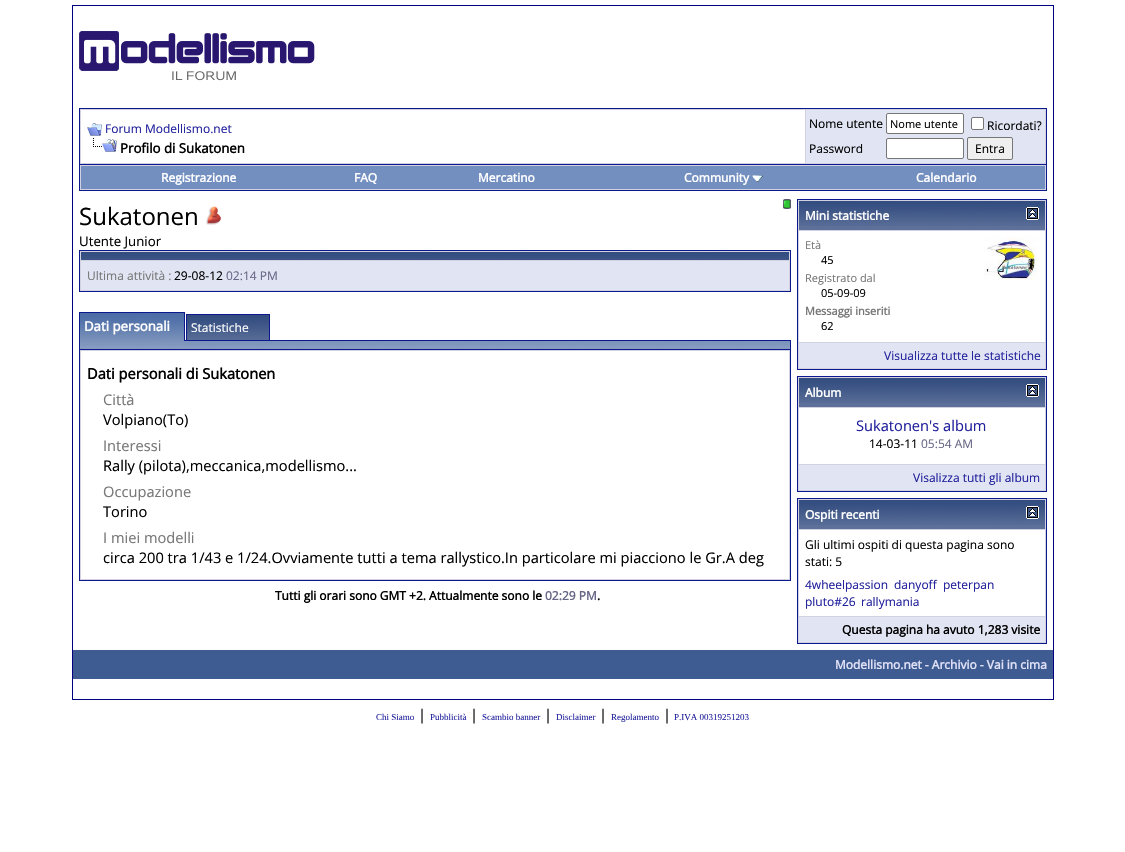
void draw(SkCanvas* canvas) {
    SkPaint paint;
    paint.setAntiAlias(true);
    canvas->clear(0xFFFFFFFF);
    paint.setStyle(SkPaint::kStroke_Style);
    paint.setStrokeWidth(1);
    paint.setColor(0xFF000080);
    canvas->drawRect(SkRect::MakeXYWH(72.5f, 5.5f, 981, 694), paint);
    canvas->drawImageRect(SkImages::DeferredFromEncodedData(SkData::MakeFromFileName("img1.png")), SkRect::MakeXYWH(79, 30, 236, 51), SkSamplingOptions());
    paint.setStyle(SkPaint::kFill_Style);
    paint.setColor(0xFFD1D1E1);
    canvas->drawRect(SkRect::MakeXYWH(79.5f, 108.5f, 967, 56), paint);
    paint.setStyle(SkPaint::kStroke_Style);
    paint.setColor(0xFF0B198C);
    canvas->drawRect(SkRect::MakeXYWH(79.5f, 108.5f, 967, 56), paint);
    paint.setStyle(SkPaint::kFill_Style);
    paint.setColor(0xFFFFFFFF);
    canvas->drawRect(SkRect::MakeXYWH(81, 110, 724, 53), paint);
    canvas->drawImageRect(SkImages::DeferredFromEncodedData(SkData::MakeFromFileName("img2.png")), SkRect::MakeXYWH(87, 123, 15, 13), SkSamplingOptions());
    SkFont font1(fontMgr->matchFamilyStyle("Open Sans", SkFontStyle::Normal()), 12);
    font1.setSubpixel(true);
    paint.setColor(0xFF22229C);
    canvas->drawString("Forum Modellismo.net", 105, 133, font1, paint);
    canvas->drawImageRect(SkImages::DeferredFromEncodedData(SkData::MakeFromFileName("img3.png")), SkRect::MakeXYWH(93, 138, 24, 14), SkSamplingOptions());
    SkFont font2(fontMgr->matchFamilyStyle("Open Sans", SkFontStyle::Bold()), 13.25f);
    font2.setSubpixel(true);
    paint.setColor(0xFF000000);
    canvas->drawString("Profilo di Sukatonen", 120, 153, font2, paint);
    paint.setColor(0xFFE1E4F2);
    canvas->drawRect(SkRect::MakeXYWH(806, 110, 239, 53), paint);
    paint.setColor(0xFF000000);
    canvas->drawString("Nome utente", 809, 128, font1, paint);
    paint.setColor(0xFFFFFFFF);
    canvas->drawRoundRect(SkRect::MakeXYWH(886.5f, 113.5f, 77, 20), 1.5f, 1.5f, paint);
    paint.setStyle(SkPaint::kStroke_Style);
    paint.setColor(0xFF767676);
    canvas->drawRoundRect(SkRect::MakeXYWH(886.5f, 113.5f, 77, 20), 1.5f, 1.5f, paint);
    SkFont font3(fontMgr->matchFamilyStyle("Open Sans", SkFontStyle::Normal()), 11);
    font3.setSubpixel(true);
    paint.setStyle(SkPaint::kFill_Style);
    paint.setColor(0xFF000000);
    canvas->drawString("Nome utente", 890, 128, font3, paint);
    paint.setColor(0xFFFFFFFF);
    canvas->drawRoundRect(SkRect::MakeXYWH(971.5f, 117.5f, 12, 12), 1.5f, 1.5f, paint);
    paint.setStyle(SkPaint::kStroke_Style);
    paint.setColor(0xFF767676);
    canvas->drawRoundRect(SkRect::MakeXYWH(971.5f, 117.5f, 12, 12), 1.5f, 1.5f, paint);
    paint.setStyle(SkPaint::kFill_Style);
    paint.setColor(0xFF000000);
    canvas->drawString("Ricordati?", 987, 130, font1, paint);
    canvas->drawString("Password", 809, 153, font1, paint);
    paint.setColor(0xFFFFFFFF);
    canvas->drawRoundRect(SkRect::MakeXYWH(886.5f, 138.5f, 77, 20), 1.5f, 1.5f, paint);
    paint.setStyle(SkPaint::kStroke_Style);
    paint.setColor(0xFF767676);
    canvas->drawRoundRect(SkRect::MakeXYWH(886.5f, 138.5f, 77, 20), 1.5f, 1.5f, paint);
    paint.setStyle(SkPaint::kFill_Style);
    paint.setColor(0xFFEFEFEF);
    canvas->drawRoundRect(SkRect::MakeXYWH(967.5f, 137.5f, 45, 22), 1.5f, 1.5f, paint);
    paint.setStyle(SkPaint::kStroke_Style);
    paint.setColor(0xFF767676);
    canvas->drawRoundRect(SkRect::MakeXYWH(967.5f, 137.5f, 45, 22), 1.5f, 1.5f, paint);
    paint.setStyle(SkPaint::kFill_Style);
    paint.setColor(0xFF000000);
    canvas->drawString("Entra", 975, 153, font1, paint);
    paint.setColor(0xFFD1D1E1);
    canvas->drawRect(SkRect::MakeXYWH(80, 165, 966, 25), paint);
    paint.setColor(0xFF0B198C);
    canvas->drawRect(SkRect::MakeXYWH(1046, 165, 1, 26), paint);
    canvas->drawRect(SkRect::MakeXYWH(79, 190, 968, 1), paint);
    canvas->drawRect(SkRect::MakeXYWH(79, 165, 1, 26), paint);
    paint.setColor(0xFF738FBF);
    canvas->drawRect(SkRect::MakeXYWH(81, 166, 964, 23), paint);
    SkFont font4(fontMgr->matchFamilyStyle("Open Sans", SkFontStyle::Bold()), 12);
    font4.setSubpixel(true);
    paint.setColor(0xFFFFFFFF);
    canvas->drawString("Registrazione", 161, 182, font4, paint);
    canvas->drawString("FAQ", 354, 182, font4, paint);
    canvas->drawString("Mercatino", 478, 182, font4, paint);
    canvas->drawString("Community", 684, 182, font4, paint);
    canvas->drawImageRect(SkImages::DeferredFromEncodedData(SkData::MakeFromFileName("img4.png")), SkRect::MakeXYWH(752, 175, 11, 7), SkSamplingOptions());
    canvas->drawString("Calendario", 916, 182, font4, paint);
    canvas->drawImageRect(SkImages::DeferredFromEncodedData(SkData::MakeFromFileName("img5.png")), SkRect::MakeXYWH(783, 199, 8, 10), SkSamplingOptions());
    SkFont font5(fontMgr->matchFamilyStyle("Open Sans", SkFontStyle::Normal()), 24);
    font5.setSubpixel(true);
    paint.setColor(0xFF000000);
    canvas->drawString("Sukatonen", 79, 225, font5, paint);
    canvas->drawImageRect(SkImages::DeferredFromEncodedData(SkData::MakeFromFileName("img6.png")), SkRect::MakeXYWH(206, 206, 15, 19), SkSamplingOptions());
    SkFont font6(fontMgr->matchFamilyStyle("Open Sans", SkFontStyle::Normal()), 13.25f);
    font6.setSubpixel(true);
    canvas->drawString("Utente Junior", 79, 246, font6, paint);
    paint.setColor(0xFFD1D1E1);
    canvas->drawRect(SkRect::MakeXYWH(79.5f, 250.5f, 711, 41), paint);
    paint.setStyle(SkPaint::kStroke_Style);
    paint.setColor(0xFF0B198C);
    canvas->drawRect(SkRect::MakeXYWH(79.5f, 250.5f, 711, 41), paint);
    canvas->drawImageRect(SkImages::DeferredFromEncodedData(SkData::MakeFromFileName("img7.png")), SkRect::MakeXYWH(81, 252, 708, 8), SkSamplingOptions());
    paint.setStyle(SkPaint::kFill_Style);
    paint.setColor(0xFFE1E4F2);
    canvas->drawRect(SkRect::MakeXYWH(81, 261, 708, 29), paint);
    paint.setColor(0xFF777777);
    canvas->drawString("Ultima attività :", 87, 280, font1, paint);
    paint.setColor(0xFF000000);
    canvas->drawString("29-08-12", 174, 280, font1, paint);
    paint.setColor(0xFF666686);
    canvas->drawString("02:14 PM", 226, 280, font1, paint);
    canvas->drawImageRect(SkImages::DeferredFromEncodedData(SkData::MakeFromFileName("img8.png")), SkRect::MakeXYWH(80, 313, 104, 28), SkSamplingOptions());
    paint.setColor(0xFF0B198C);
    canvas->drawRect(SkRect::MakeXYWH(79, 312, 106, 1), paint);
    canvas->drawRect(SkRect::MakeXYWH(184, 312, 1, 29), paint);
    canvas->drawRect(SkRect::MakeXYWH(79, 340, 1, 9), paint);
    canvas->drawRect(SkRect::MakeXYWH(79, 312, 1, 29), paint);
    paint.setColor(0xFFFFFFFF);
    canvas->drawString("Dati personali", 84, 331, font2, paint);
    canvas->drawImageRect(SkImages::DeferredFromEncodedData(SkData::MakeFromFileName("img9.png")), SkRect::MakeXYWH(187, 315, 82, 25), SkSamplingOptions());
    paint.setColor(0xFF0B198C);
    canvas->drawRect(SkRect::MakeXYWH(185, 340, 606, 1), paint);
    paint.setStyle(SkPaint::kStroke_Style);
    canvas->drawRect(SkRect::MakeXYWH(186.5f, 314.5f, 83, 26), paint);
    paint.setStyle(SkPaint::kFill_Style);
    paint.setColor(0xFFFFFFFF);
    canvas->drawString("Statistiche", 191, 332, font1, paint);
    paint.setColor(0xFF869BBF);
    canvas->drawRect(SkRect::MakeXYWH(80, 346, 710, 3), paint);
    canvas->drawImageRect(SkImages::DeferredFromEncodedData(SkData::MakeFromFileName("img10.png")), SkRect::MakeXYWH(80, 341, 710, 5), SkSamplingOptions());
    paint.setColor(0xFF0B198C);
    canvas->drawRect(SkRect::MakeXYWH(790, 340, 1, 9), paint);
    paint.setColor(0xFFD1D1E1);
    canvas->drawRect(SkRect::MakeXYWH(79.5f, 349.5f, 711, 231), paint);
    paint.setStyle(SkPaint::kStroke_Style);
    paint.setColor(0xFF0B198C);
    canvas->drawRect(SkRect::MakeXYWH(79.5f, 349.5f, 711, 231), paint);
    paint.setStyle(SkPaint::kFill_Style);
    paint.setColor(0xFFFFFFFF);
    canvas->drawRect(SkRect::MakeXYWH(81, 351, 708, 228), paint);
    SkFont font7(fontMgr->matchFamilyStyle("Open Sans", SkFontStyle::Bold()), 14.65f);
    font7.setSubpixel(true);
    paint.setColor(0xFF000000);
    canvas->drawString("Dati personali di Sukatonen", 87, 379, font7, paint);
    SkFont font8(fontMgr->matchFamilyStyle("Open Sans", SkFontStyle::Normal()), 14.65f);
    font8.setSubpixel(true);
    paint.setColor(0xFF777777);
    canvas->drawString("Città", 103, 405, font8, paint);
    paint.setColor(0xFF000000);
    canvas->drawString("Volpiano(To)", 103, 425, font8, paint);
    paint.setColor(0xFF777777);
    canvas->drawString("Interessi", 103, 451, font8, paint);
    paint.setColor(0xFF000000);
    canvas->drawString("Rally (pilota),meccanica,modellismo...", 103, 471, font8, paint);
    paint.setColor(0xFF777777);
    canvas->drawString("Occupazione", 103, 497, font8, paint);
    paint.setColor(0xFF000000);
    canvas->drawString("Torino", 103, 517, font8, paint);
    paint.setColor(0xFF777777);
    canvas->drawString("I miei modelli", 103, 543, font8, paint);
    paint.setColor(0xFF000000);
    canvas->drawString("circa 200 tra 1/43 e 1/24.Ovviamente tutti a tema rallystico.In particolare mi piacciono le Gr.A deg", 103, 563, font8, paint);
    paint.setColor(0xFFD1D1E1);
    canvas->drawRect(SkRect::MakeXYWH(797.5f, 199.5f, 249, 170), paint);
    paint.setStyle(SkPaint::kStroke_Style);
    paint.setColor(0xFF0B198C);
    canvas->drawRect(SkRect::MakeXYWH(797.5f, 199.5f, 249, 170), paint);
    paint.setStyle(SkPaint::kFill_Style);
    paint.setColor(0xFF5C7099);
    canvas->drawRect(SkRect::MakeXYWH(799, 226, 246, 4), paint);
    canvas->drawImageRect(SkImages::DeferredFromEncodedData(SkData::MakeFromFileName("img11.png")), SkRect::MakeXYWH(799, 201, 246, 25), SkSamplingOptions());
    paint.setColor(0xFFFFFFFF);
    canvas->drawString("Mini statistiche", 805, 220, font4, paint);
    canvas->drawImageRect(SkImages::DeferredFromEncodedData(SkData::MakeFromFileName("img12.png")), SkRect::MakeXYWH(1026, 207, 13, 13), SkSamplingOptions());
    canvas->drawRect(SkRect::MakeXYWH(799, 231, 246, 111), paint);
    paint.setColor(0xFF777777);
    canvas->drawString("Età", 805, 249, font3, paint);
    paint.setColor(0xFF000000);
    canvas->drawString("45", 821, 264, font3, paint);
    paint.setColor(0xFF777777);
    canvas->drawString("Registrato dal", 805, 282, font3, paint);
    paint.setColor(0xFF000000);
    canvas->drawString("05-09-09", 821, 297, font3, paint);
    SkFont font9(fontMgr->matchFamilyStyle("Open Sans", SkFontStyle::Bold()), 11);
    font9.setSubpixel(true);
    paint.setColor(0xFF777777);
    canvas->drawString("Messaggi inseriti", 805, 315, font9, paint);
    paint.setColor(0xFF000000);
    canvas->drawString("62", 821, 330, font3, paint);
    canvas->drawImageRect(SkImages::DeferredFromEncodedData(SkData::MakeFromFileName("img13.png")), SkRect::MakeXYWH(979, 237, 60, 43), SkSamplingOptions());
    paint.setColor(0xFFE1E4F2);
    canvas->drawRect(SkRect::MakeXYWH(799, 343, 246, 25), paint);
    paint.setColor(0xFF22229C);
    canvas->drawString("Visualizza tutte le statistiche", 884, 360, font1, paint);
    paint.setColor(0xFFD1D1E1);
    canvas->drawRect(SkRect::MakeXYWH(797.5f, 376.5f, 249, 115), paint);
    paint.setStyle(SkPaint::kStroke_Style);
    paint.setColor(0xFF0B198C);
    canvas->drawRect(SkRect::MakeXYWH(797.5f, 376.5f, 249, 115), paint);
    paint.setStyle(SkPaint::kFill_Style);
    paint.setColor(0xFF5C7099);
    canvas->drawRect(SkRect::MakeXYWH(799, 403, 246, 4), paint);
    canvas->drawImageRect(SkImages::DeferredFromEncodedData(SkData::MakeFromFileName("img11.png")), SkRect::MakeXYWH(799, 378, 246, 25), SkSamplingOptions());
    paint.setColor(0xFFFFFFFF);
    canvas->drawString("Album", 805, 397, font4, paint);
    canvas->drawImageRect(SkImages::DeferredFromEncodedData(SkData::MakeFromFileName("img12.png")), SkRect::MakeXYWH(1026, 384, 13, 13), SkSamplingOptions());
    canvas->drawRect(SkRect::MakeXYWH(799, 408, 246, 56), paint);
    paint.setColor(0xFF22229C);
    canvas->drawString("Sukatonen's album", 856, 431, font8, paint);
    paint.setColor(0xFF000000);
    canvas->drawString("14-03-11", 869, 448, font1, paint);
    paint.setColor(0xFF666686);
    canvas->drawString("05:54 AM", 921, 448, font1, paint);
    paint.setColor(0xFFE1E4F2);
    canvas->drawRect(SkRect::MakeXYWH(799, 465, 246, 25), paint);
    paint.setColor(0xFF22229C);
    canvas->drawString("Visalizza tutti gli album", 913, 482, font1, paint);
    paint.setColor(0xFFD1D1E1);
    canvas->drawRect(SkRect::MakeXYWH(797.5f, 498.5f, 249, 145), paint);
    paint.setStyle(SkPaint::kStroke_Style);
    paint.setColor(0xFF0B198C);
    canvas->drawRect(SkRect::MakeXYWH(797.5f, 498.5f, 249, 145), paint);
    paint.setStyle(SkPaint::kFill_Style);
    paint.setColor(0xFF5C7099);
    canvas->drawRect(SkRect::MakeXYWH(799, 525, 246, 4), paint);
    canvas->drawImageRect(SkImages::DeferredFromEncodedData(SkData::MakeFromFileName("img11.png")), SkRect::MakeXYWH(799, 500, 246, 25), SkSamplingOptions());
    paint.setColor(0xFFFFFFFF);
    canvas->drawString("Ospiti recenti", 805, 519, font4, paint);
    canvas->drawImageRect(SkImages::DeferredFromEncodedData(SkData::MakeFromFileName("img12.png")), SkRect::MakeXYWH(1026, 506, 13, 13), SkSamplingOptions());
    canvas->drawRect(SkRect::MakeXYWH(799, 530, 246, 86), paint);
    paint.setColor(0xFF000000);
    canvas->drawString("Gli ultimi ospiti di questa pagina sono", 805, 549, font1, paint);
    canvas->drawString("stati: 5", 805, 566, font1, paint);
    paint.setColor(0xFF22229C);
    canvas->drawString("4wheelpassion", 805, 589, font1, paint);
    canvas->drawString("danyoff", 894, 589, font1, paint);
    canvas->drawString("peterpan", 943, 589, font1, paint);
    canvas->drawString("pluto#26", 805, 606, font1, paint);
    canvas->drawString("rallymania", 861, 606, font1, paint);
    paint.setColor(0xFFE1E4F2);
    canvas->drawRect(SkRect::MakeXYWH(799, 617, 246, 25), paint);
    paint.setColor(0xFF000000);
    canvas->drawString("Questa pagina ha avuto 1,283 visite", 842, 634, font4, paint);
    canvas->drawString("Tutti gli orari sono GMT +2. Attualmente sono le", 275, 600, font4, paint);
    paint.setColor(0xFF666686);
    canvas->drawString("02:29 PM", 545, 600, font4, paint);
    paint.setColor(0xFF000000);
    canvas->drawString(".", 597, 600, font4, paint);
    paint.setColor(0xFF3E5C92);
    canvas->drawRect(SkRect::MakeXYWH(73, 650, 980, 29), paint);
    paint.setColor(0xFFE0E0F6);
    canvas->drawString("Modellismo.net - Archivio - Vai in cima", 835, 669, font4, paint);
    SkFont font10(fontMgr->matchFamilyStyle("Liberation Serif", SkFontStyle::Normal()), 9);
    font10.setSubpixel(true);
    paint.setColor(0xFF22229C);
    canvas->drawString("Chi Siamo", 376, 720, font10, paint);
    paint.setColor(0xFF000000);
    canvas->drawString("|", 418, 720, font8, paint);
    paint.setColor(0xFF22229C);
    canvas->drawString("Pubblicità", 430, 720, font10, paint);
    paint.setColor(0xFF000000);
    canvas->drawString("|", 470, 720, font8, paint);
    paint.setColor(0xFF22229C);
    canvas->drawString("Scambio banner", 482, 720, font10, paint);
    paint.setColor(0xFF000000);
    canvas->drawString("|", 544, 720, font8, paint);
    paint.setColor(0xFF22229C);
    canvas->drawString("Disclaimer", 556, 720, font10, paint);
    paint.setColor(0xFF000000);
    canvas->drawString("|", 599, 720, font8, paint);
    paint.setColor(0xFF22229C);
    canvas->drawString("Regolamento", 611, 720, font10, paint);
    paint.setColor(0xFF000000);
    canvas->drawString("|", 663, 720, font8, paint);
    paint.setColor(0xFF22229C);
    canvas->drawString("P.IVA 00319251203", 674, 720, font10, paint);
}
